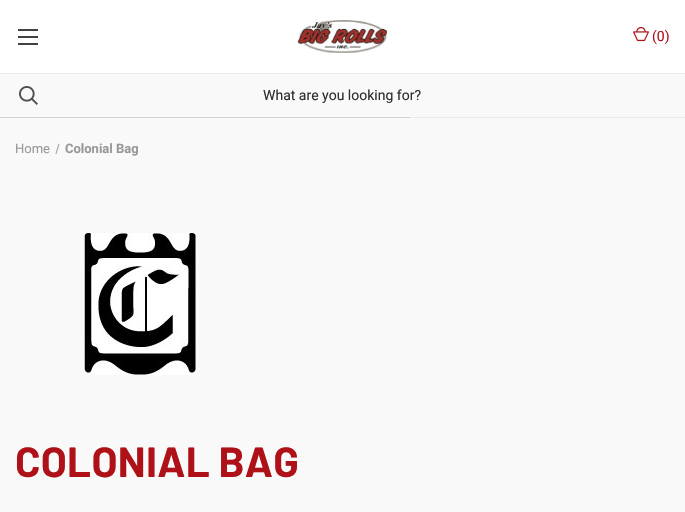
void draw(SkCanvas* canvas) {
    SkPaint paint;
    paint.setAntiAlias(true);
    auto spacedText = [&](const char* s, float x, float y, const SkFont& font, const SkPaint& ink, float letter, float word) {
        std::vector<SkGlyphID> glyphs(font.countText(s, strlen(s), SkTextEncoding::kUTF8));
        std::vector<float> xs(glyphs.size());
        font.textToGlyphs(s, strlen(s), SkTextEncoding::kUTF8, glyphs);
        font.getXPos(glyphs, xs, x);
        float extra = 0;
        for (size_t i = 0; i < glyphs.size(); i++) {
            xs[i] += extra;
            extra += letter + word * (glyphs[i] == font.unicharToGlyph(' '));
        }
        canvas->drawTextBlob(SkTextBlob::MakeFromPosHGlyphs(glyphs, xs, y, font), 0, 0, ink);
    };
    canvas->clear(0xFFF9F9F9);
    paint.setColor(0xFFFFFFFF);
    canvas->drawRect(SkRect::MakeXYWH(0, 0, 685, 73), paint);
    paint.setColor(0xFFEBEBEB);
    canvas->drawRect(SkRect::MakeXYWH(410, 117, 275, 1), paint);
    paint.setColor(0xFF424242);
    canvas->drawRect(SkRect::MakeXYWH(18, 36, 20, 2), paint);
    canvas->drawRect(SkRect::MakeXYWH(18, 29, 20, 2), paint);
    canvas->drawRect(SkRect::MakeXYWH(18, 43, 20, 2), paint);
    canvas->drawImageRect(SkImages::DeferredFromEncodedData(SkData::MakeFromFileName("img1.png")), SkRect::MakeXYWH(298, 20, 89, 33), SkSamplingOptions());
    canvas->drawImageRect(SkImages::DeferredFromEncodedData(SkData::MakeFromFileName("img2.png")), SkRect::MakeXYWH(633, 27, 16, 15), SkSamplingOptions());
    SkFont font1(fontMgr->matchFamilyStyle("Roboto", SkFontStyle::Normal()), 14);
    font1.setSubpixel(true);
    paint.setColor(0xFFAE1117);
    canvas->drawString("(0)", 652, 41, font1, paint);
    canvas->drawImageRect(SkImages::DeferredFromEncodedData(SkData::MakeFromFileName("img3.png")), SkRect::MakeXYWH(19, 86, 19, 19), SkSamplingOptions());
    paint.setColor(0xFFEBEBEB);
    canvas->drawRect(SkRect::MakeXYWH(0, 73, 685, 1), paint);
    paint.setColor(0xFF2D2D2D);
    canvas->drawString("What are you looking for?", 263, 100, font1, paint);
    paint.setColor(0xFFD2D2D2);
    canvas->drawRect(SkRect::MakeXYWH(0, 117, 410, 1), paint);
    SkFont font2(fontMgr->matchFamilyStyle("Roboto", SkFontStyle::Normal()), 13);
    font2.setSubpixel(true);
    paint.setColor(0xFF989898);
    canvas->drawString("Home", 15, 153, font2, paint);
    paint.setColor(0xFFA3A3A3);
    canvas->drawPath(SkPathBuilder().moveTo(58.5f, 143.5f).lineTo(59.5f, 144).lineTo(56.5f, 154).lineTo(55.5f, 153.5f).close().detach(), paint);
    SkFont font3(fontMgr->matchFamilyStyle("Roboto", SkFontStyle::Bold()), 13);
    font3.setSubpixel(true);
    paint.setColor(0xFF989898);
    canvas->drawString("Colonial Bag", 65, 153, font3, paint);
    canvas->drawImageRect(SkImages::DeferredFromEncodedData(SkData::MakeFromFileName("img4.png")), SkRect::MakeXYWH(84, 233, 112, 142), SkSamplingOptions());
    SkFont font4(fontMgr->matchFamilyStyle("Barlow", SkFontStyle::Bold()), 42);
    font4.setSubpixel(true);
    paint.setColor(0xFFAE1117);
    spacedText("COLONIAL BAG", 15, 477, font4, paint, 0.25f, 0);
}
